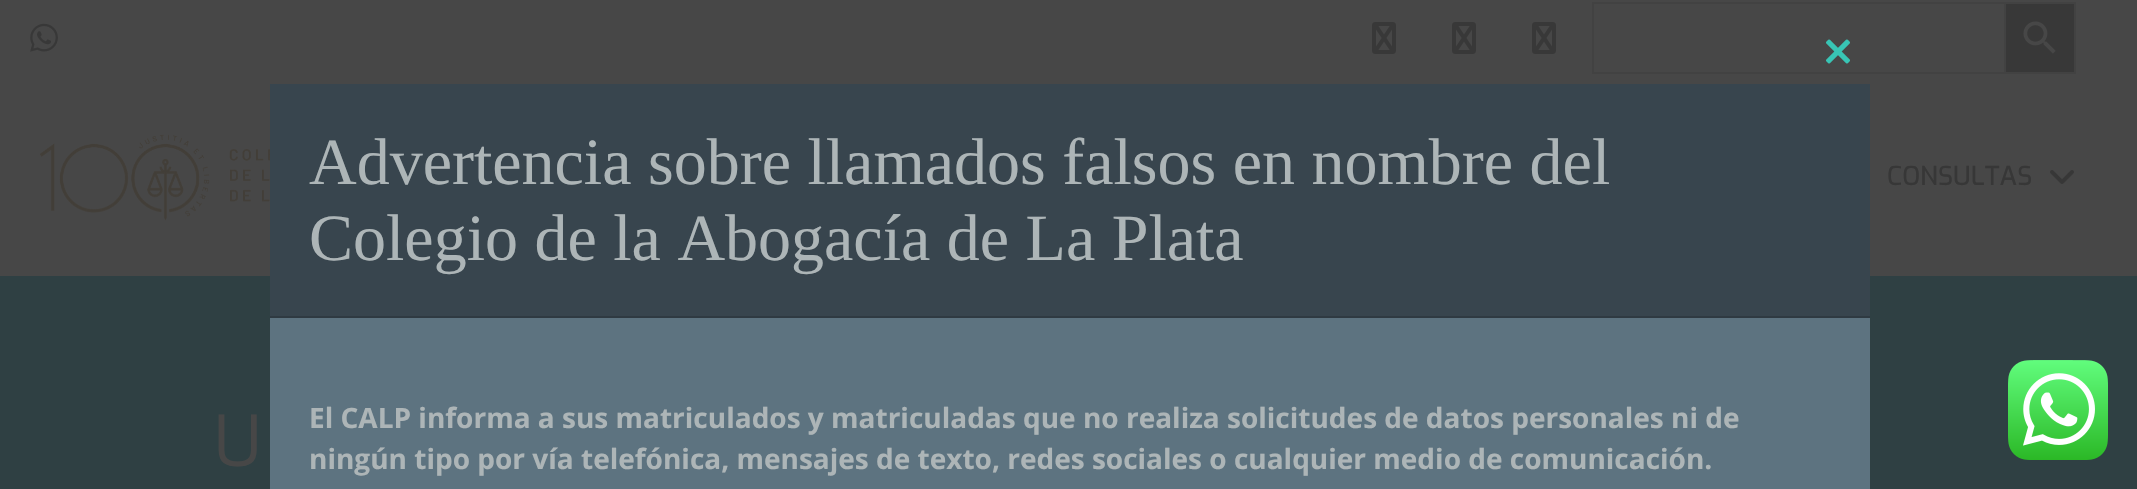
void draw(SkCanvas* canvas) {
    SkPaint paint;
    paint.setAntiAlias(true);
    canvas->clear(0xFF474747);
    paint.setColor(0xFF2F4043);
    canvas->drawRect(SkRect::MakeXYWH(0, 276, 2137, 213), paint);
    paint.setColor(0xFF38454E);
    canvas->drawRect(SkRect::MakeXYWH(270, 84, 1600, 232), paint);
    canvas->drawImageRect(SkImages::DeferredFromEncodedData(SkData::MakeFromFileName("img1.png")), SkRect::MakeXYWH(1826, 39, 24, 25), SkSamplingOptions());
    paint.setColor(0xFF2F3A42);
    canvas->drawRect(SkRect::MakeXYWH(270, 316, 1600, 2), paint);
    SkFont font1(fontMgr->matchFamilyStyle("Liberation Serif", SkFontStyle::Normal()), 66);
    font1.setSubpixel(true);
    paint.setColor(0xFFADB5B7);
    canvas->drawString("Advertencia sobre llamados falsos en nombre del", 309, 184, font1, paint);
    canvas->drawString("Colegio de la Abogacía de La Plata", 309, 260, font1, paint);
    paint.setColor(0xFF5D7380);
    canvas->drawRect(SkRect::MakeXYWH(270, 318, 1600, 171), paint);
    SkFont font2(fontMgr->matchFamilyStyle("Open Sans", SkFontStyle::Bold()), 28);
    font2.setSubpixel(true);
    paint.setColor(0xFFADB5B7);
    canvas->drawString("El CALP informa a sus matriculados y matriculadas que no realiza solicitudes de datos personales ni de", 309, 428, font2, paint);
    canvas->drawString("ningún tipo por vía telefónica, mensajes de texto, redes sociales o cualquier medio de comunicación.", 309, 469, font2, paint);
    canvas->drawImageRect(SkImages::DeferredFromEncodedData(SkData::MakeFromFileName("img2.png")), SkRect::MakeXYWH(30, 23, 28, 29), SkSamplingOptions());
    canvas->drawImageRect(SkImages::DeferredFromEncodedData(SkData::MakeFromFileName("img3.png")), SkRect::MakeXYWH(1372, 22, 24, 32), SkSamplingOptions());
    canvas->drawImageRect(SkImages::DeferredFromEncodedData(SkData::MakeFromFileName("img3.png")), SkRect::MakeXYWH(1452, 22, 24, 32), SkSamplingOptions());
    canvas->drawImageRect(SkImages::DeferredFromEncodedData(SkData::MakeFromFileName("img3.png")), SkRect::MakeXYWH(1532, 22, 24, 32), SkSamplingOptions());
    paint.setColor(0xFF424242);
    canvas->drawRect(SkRect::MakeXYWH(1592, 2, 412, 2), paint);
    canvas->drawRect(SkRect::MakeXYWH(1592, 72, 412, 2), paint);
    canvas->drawRect(SkRect::MakeXYWH(1592, 2, 2, 72), paint);
    paint.setColor(0xFF383838);
    canvas->drawRect(SkRect::MakeXYWH(2005, 3, 70, 70), paint);
    paint.setStyle(SkPaint::kStroke_Style);
    paint.setStrokeWidth(2);
    paint.setColor(0xFF424242);
    canvas->drawRect(SkRect::MakeXYWH(2005, 3, 70, 70), paint);
    canvas->drawImageRect(SkImages::DeferredFromEncodedData(SkData::MakeFromFileName("img4.png")), SkRect::MakeXYWH(2023, 21, 33, 33), SkSamplingOptions());
    canvas->drawImageRect(SkImages::DeferredFromEncodedData(SkData::MakeFromFileName("img5.png")), SkRect::MakeXYWH(39, 134, 231, 87), SkSamplingOptions());
    SkFont font3(fontMgr->matchFamilyStyle("Exo", SkFontStyle(500, SkFontStyle::kNormal_Width, SkFontStyle::kUpright_Slant)), 26);
    font3.setSubpixel(true);
    paint.setStyle(SkPaint::kFill_Style);
    paint.setColor(0xFF373737);
    canvas->drawString("CONSULTAS", 1887, 185, font3, paint);
    canvas->drawImageRect(SkImages::DeferredFromEncodedData(SkData::MakeFromFileName("img6.png")), SkRect::MakeXYWH(2050, 170, 24, 14), SkSamplingOptions());
    SkFont font4(fontMgr->matchFamilyStyle("Exo", SkFontStyle::Normal()), 70);
    font4.setSubpixel(true);
    paint.setColor(0xFF474747);
    canvas->drawString("U", 214, 466, font4, paint);
    canvas->drawImageRect(SkImages::DeferredFromEncodedData(SkData::MakeFromFileName("img7.png")), SkRect::MakeXYWH(2008, 360, 100, 100), SkSamplingOptions());
}
